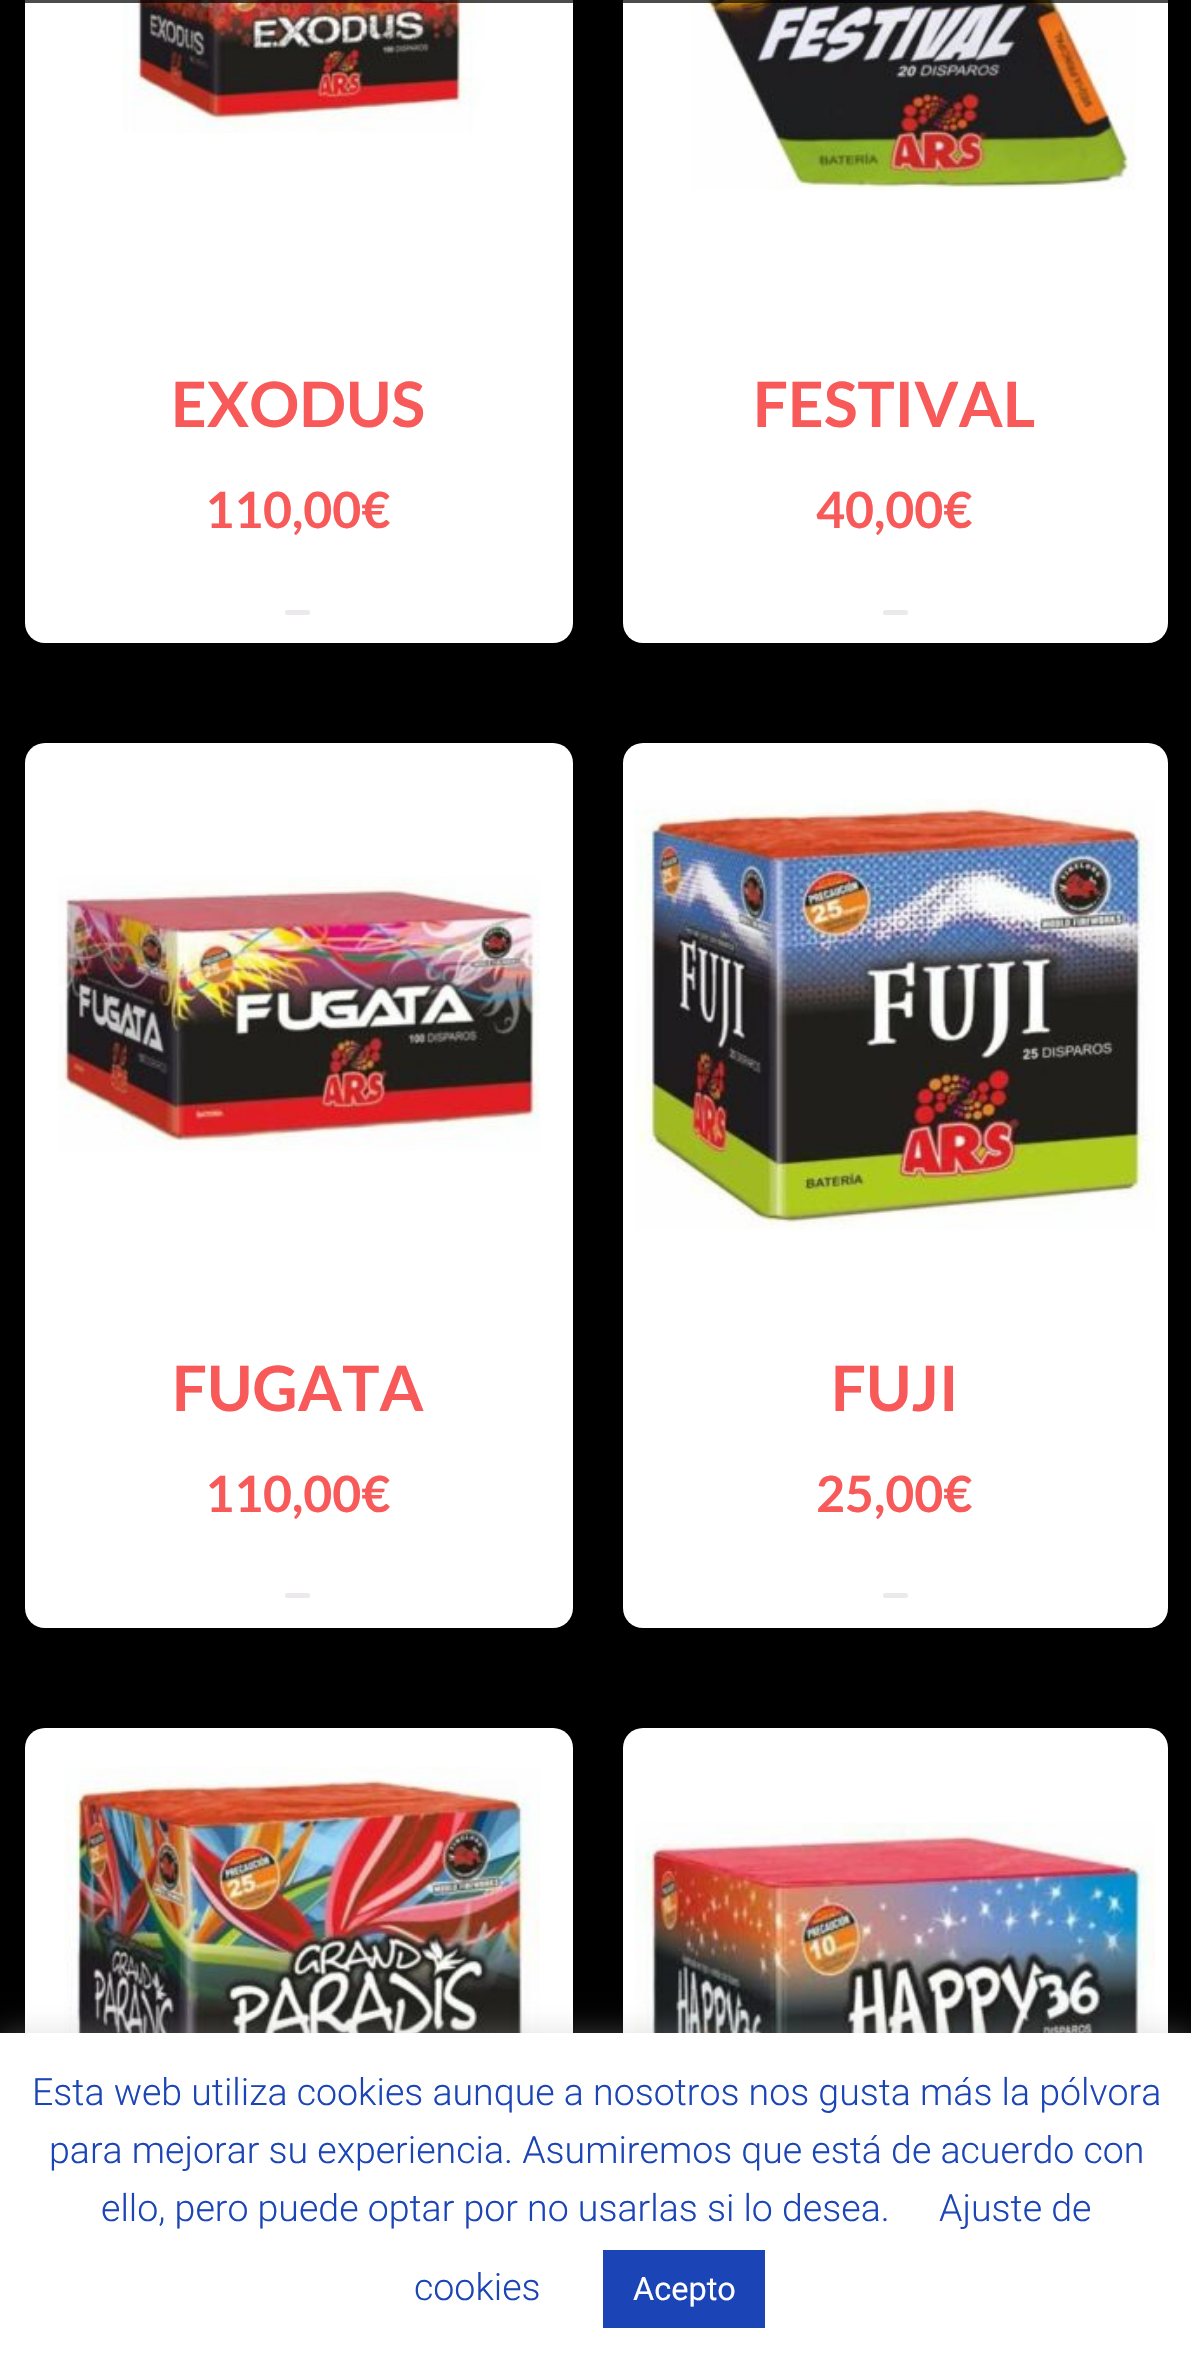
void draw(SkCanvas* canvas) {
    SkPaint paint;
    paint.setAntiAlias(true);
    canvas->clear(0xFF000000);
    paint.setColor(0xFFFFFFFF);
    canvas->drawRoundRect(SkRect::MakeXYWH(25, -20, 548, 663), 20, 20, paint);
    canvas->drawImageRect(SkImages::DeferredFromEncodedData(SkData::MakeFromFileName("img1.png")), SkRect::MakeXYWH(122, 0, 362, 133), SkSamplingOptions());
    canvas->drawRoundRect(SkRect::MakeXYWH(623, -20, 545, 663), 20, 20, paint);
    canvas->drawImageRect(SkImages::DeferredFromEncodedData(SkData::MakeFromFileName("img2.png")), SkRect::MakeXYWH(691, 0, 444, 190), SkSamplingOptions());
    paint.setColor(0xB3000000);
    canvas->drawRect(SkRect::MakeXYWH(25, 0, 1143, 3), paint);
    SkFont font1(fontMgr->matchFamilyStyle("Lato", SkFontStyle::Bold()), 62.5f);
    font1.setSubpixel(true);
    paint.setColor(0xFFF85959);
    canvas->drawString("EXODUS", 171, 427, font1, paint);
    SkFont font2(fontMgr->matchFamilyStyle("Lato", SkFontStyle::Bold()), 50);
    font2.setSubpixel(true);
    canvas->drawString("110,00€", 205, 528, font2, paint);
    paint.setColor(0xFFEBE9EB);
    canvas->drawRoundRect(SkRect::MakeXYWH(285, 610, 25, 5), 2.5f, 2.5f, paint);
    paint.setColor(0xFFF85959);
    canvas->drawString("FESTIVAL", 753, 427, font1, paint);
    canvas->drawString("40,00€", 816, 528, font2, paint);
    paint.setColor(0xFFEBE9EB);
    canvas->drawRoundRect(SkRect::MakeXYWH(883, 610, 25, 5), 2.5f, 2.5f, paint);
    paint.setColor(0xFFFFFFFF);
    canvas->drawRoundRect(SkRect::MakeXYWH(25, 743, 548, 885), 20, 20, paint);
    canvas->drawImageRect(SkImages::DeferredFromEncodedData(SkData::MakeFromFileName("img3.png")), SkRect::MakeXYWH(58, 876, 482, 275), SkSamplingOptions());
    paint.setColor(0xFFF85959);
    canvas->drawString("FUGATA", 172, 1411, font1, paint);
    canvas->drawString("110,00€", 205, 1512, font2, paint);
    paint.setColor(0xFFEBE9EB);
    canvas->drawRoundRect(SkRect::MakeXYWH(285, 1593, 25, 5), 2.5f, 2.5f, paint);
    paint.setColor(0xFFFFFFFF);
    canvas->drawRoundRect(SkRect::MakeXYWH(623, 743, 545, 885), 20, 20, paint);
    canvas->drawImageRect(SkImages::DeferredFromEncodedData(SkData::MakeFromFileName("img4.png")), SkRect::MakeXYWH(635, 799, 520, 431), SkSamplingOptions());
    paint.setColor(0xFFF85959);
    canvas->drawString("FUJI", 831, 1411, font1, paint);
    canvas->drawString("25,00€", 816, 1512, font2, paint);
    paint.setColor(0xFFEBE9EB);
    canvas->drawRoundRect(SkRect::MakeXYWH(883, 1593, 25, 5), 2.5f, 2.5f, paint);
    paint.setColor(0xFFFFFFFF);
    canvas->drawRoundRect(SkRect::MakeXYWH(25, 1728, 548, 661), 20, 20, paint);
    canvas->drawImageRect(SkImages::DeferredFromEncodedData(SkData::MakeFromFileName("img5.png")), SkRect::MakeXYWH(64, 1767, 476, 266), SkSamplingOptions());
    canvas->drawRoundRect(SkRect::MakeXYWH(623, 1728, 545, 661), 20, 20, paint);
    canvas->drawImageRect(SkImages::DeferredFromEncodedData(SkData::MakeFromFileName("img6.png")), SkRect::MakeXYWH(635, 1822, 520, 211), SkSamplingOptions());
    paint.setColor(0x4DACABAB);
    paint.setMaskFilter(SkMaskFilter::MakeBlur(kNormal_SkBlurStyle, 12.5f));
    canvas->drawRect(SkRect::MakeXYWH(0, 2030, 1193, 338), paint);
    paint.setMaskFilter(nullptr);
    paint.setColor(0xFFFFFFFF);
    canvas->drawRect(SkRect::MakeXYWH(0, 2033, 1191, 336), paint);
    SkFont font3(fontMgr->matchFamilyStyle("Roboto", SkFontStyle(300, SkFontStyle::kNormal_Width, SkFontStyle::kUpright_Slant)), 37.5f);
    font3.setSubpixel(true);
    paint.setColor(0xFF1B45B7);
    canvas->drawString("Esta web utiliza cookies aunque a nosotros nos gusta más la pólvora", 32, 2105, font3, paint);
    canvas->drawString("para mejorar su experiencia. Asumiremos que está de acuerdo con", 49, 2163, font3, paint);
    canvas->drawString("ello, pero puede optar por no usarlas si lo desea.", 101, 2221, font3, paint);
    canvas->drawString("Ajuste de", 939, 2221, font3, paint);
    canvas->drawString("cookies", 414, 2300, font3, paint);
    canvas->drawRect(SkRect::MakeXYWH(603, 2250, 162, 78), paint);
    SkFont font4(fontMgr->matchFamilyStyle("Roboto", SkFontStyle::Normal()), 32.5f);
    font4.setSubpixel(true);
    paint.setColor(0xFFFFFFFF);
    canvas->drawString("Acepto", 633, 2300, font4, paint);
}
